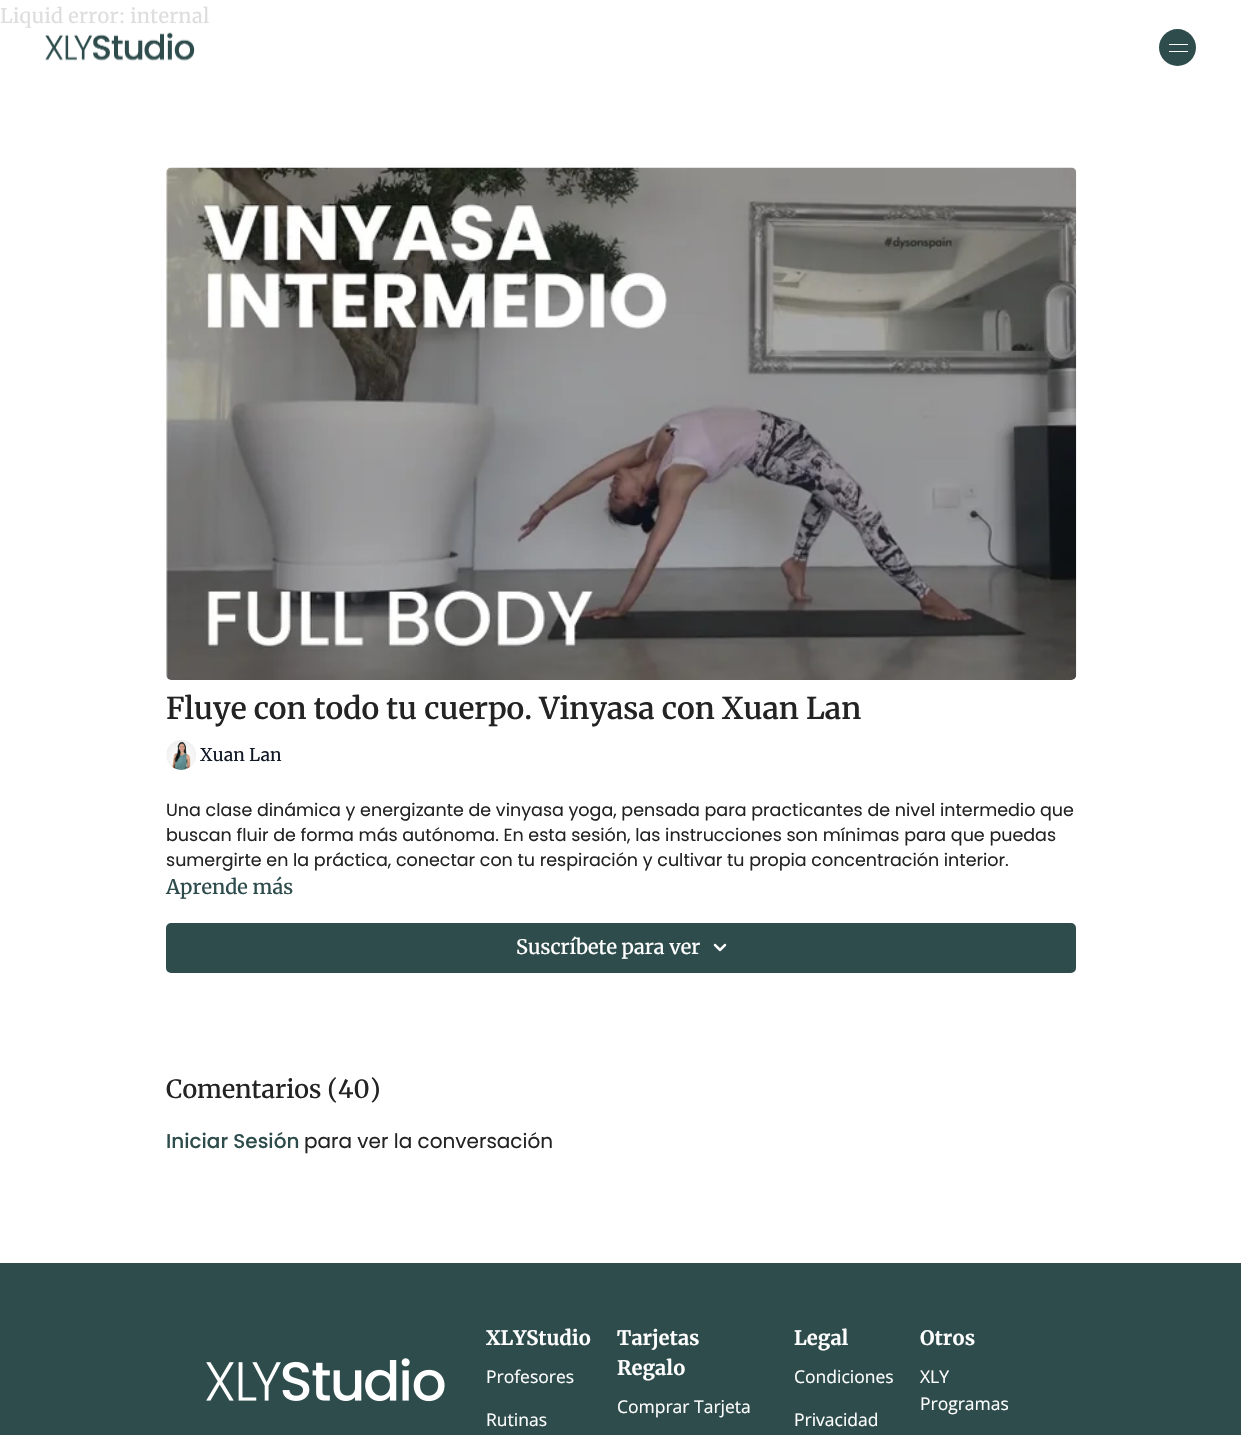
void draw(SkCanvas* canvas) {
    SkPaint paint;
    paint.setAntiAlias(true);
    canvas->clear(0xFFFFFFFF);
    SkFont font1(fontMgr->matchFamilyStyle("Merriweather", SkFontStyle::Normal()), 20);
    font1.setSubpixel(true);
    paint.setColor(0xFFDEDEDE);
    canvas->drawString("Liquid error: internal", 0, 23, font1, paint);
    canvas->drawImageRect(SkImages::DeferredFromEncodedData(SkData::MakeFromFileName("img1.png")), SkRect::MakeXYWH(45, 32, 150, 29), SkSamplingOptions());
    paint.setColor(0xFF2E4C4C);
    canvas->drawCircle(1177.5f, 47.5f, 18.5f, paint);
    paint.setColor(0xFFFFFFFF);
    canvas->drawRect(SkRect::MakeXYWH(1169, 44, 19, 1), paint);
    canvas->drawRect(SkRect::MakeXYWH(1169, 51, 19, 1), paint);
    canvas->drawImageRect(SkImages::DeferredFromEncodedData(SkData::MakeFromFileName("img2.png")), SkRect::MakeXYWH(166, 167, 911, 513), SkSamplingOptions());
    SkFont font2(fontMgr->matchFamilyStyle("Merriweather", SkFontStyle(600, SkFontStyle::kNormal_Width, SkFontStyle::kUpright_Slant)), 30);
    font2.setSubpixel(true);
    paint.setColor(0xFF232323);
    canvas->drawString("Fluye con todo tu cuerpo. Vinyasa con Xuan Lan", 166, 719, font2, paint);
    canvas->drawImageRect(SkImages::DeferredFromEncodedData(SkData::MakeFromFileName("img3.png")), SkRect::MakeXYWH(166, 740, 30, 30), SkSamplingOptions());
    SkFont font3(fontMgr->matchFamilyStyle("Merriweather", SkFontStyle::Normal()), 17.5f);
    font3.setSubpixel(true);
    paint.setColor(0xFF111827);
    canvas->drawString("Xuan Lan", 200, 761, font3, paint);
    SkFont font4(fontMgr->matchFamilyStyle("Poppins", SkFontStyle::Normal()), 17.5f);
    font4.setSubpixel(true);
    paint.setColor(0xFF232323);
    canvas->drawString("Una clase dinámica y energizante de vinyasa yoga, pensada para practicantes de nivel intermedio que", 166, 816, font4, paint);
    canvas->drawString("buscan fluir de forma más autónoma. En esta sesión, las instrucciones son mínimas para que puedas", 166, 841, font4, paint);
    canvas->drawString("sumergirte en la práctica, conectar con tu respiración y cultivar tu propia concentración interior.", 166, 866, font4, paint);
    SkFont font5(fontMgr->matchFamilyStyle("Merriweather", SkFontStyle(500, SkFontStyle::kNormal_Width, SkFontStyle::kUpright_Slant)), 20);
    font5.setSubpixel(true);
    paint.setColor(0xFF2E4C4C);
    canvas->drawString("Aprende más", 166, 894, font5, paint);
    canvas->drawRoundRect(SkRect::MakeXYWH(166, 923, 910, 50), 5, 5, paint);
    paint.setColor(0xFFFFFFFF);
    canvas->drawString("Suscríbete para ver", 516, 954, font5, paint);
    canvas->drawImageRect(SkImages::DeferredFromEncodedData(SkData::MakeFromFileName("img4.png")), SkRect::MakeXYWH(713, 943, 14, 9), SkSamplingOptions());
    SkFont font6(fontMgr->matchFamilyStyle("Merriweather", SkFontStyle(500, SkFontStyle::kNormal_Width, SkFontStyle::kUpright_Slant)), 25);
    font6.setSubpixel(true);
    paint.setColor(0xFF232323);
    canvas->drawString("Comentarios (40)", 166, 1098, font6, paint);
    SkFont font7(fontMgr->matchFamilyStyle("Poppins", SkFontStyle(500, SkFontStyle::kNormal_Width, SkFontStyle::kUpright_Slant)), 20);
    font7.setSubpixel(true);
    paint.setColor(0xFF2E4C4C);
    canvas->drawString("Iniciar Sesión", 166, 1148, font7, paint);
    SkFont font8(fontMgr->matchFamilyStyle("Poppins", SkFontStyle::Normal()), 20);
    font8.setSubpixel(true);
    paint.setColor(0xFF232323);
    canvas->drawString("para ver la conversación", 304, 1148, font8, paint);
    paint.setColor(0xFF2E4C4C);
    canvas->drawRect(SkRect::MakeXYWH(0, 1263, 1241, 172), paint);
    canvas->drawImageRect(SkImages::DeferredFromEncodedData(SkData::MakeFromFileName("img5.png")), SkRect::MakeXYWH(206, 1358, 239, 44), SkSamplingOptions());
    SkFont font9(fontMgr->matchFamilyStyle("Merriweather", SkFontStyle::Bold()), 20);
    font9.setSubpixel(true);
    paint.setColor(0xFFFFFFFF);
    canvas->drawString("XLYStudio", 486, 1345, font9, paint);
    SkFont font10(fontMgr->matchFamilyStyle("Open Sans", SkFontStyle::Normal()), 17.5f);
    font10.setSubpixel(true);
    canvas->drawString("Profesores", 486, 1383, font10, paint);
    canvas->drawString("Rutinas", 486, 1426, font10, paint);
    canvas->drawString("Tarjetas", 617, 1345, font9, paint);
    canvas->drawString("Regalo", 617, 1375, font9, paint);
    canvas->drawString("Comprar Tarjeta", 617, 1413, font10, paint);
    canvas->drawString("Legal", 794, 1345, font9, paint);
    canvas->drawString("Condiciones", 794, 1383, font10, paint);
    canvas->drawString("Privacidad", 794, 1426, font10, paint);
    canvas->drawString("Otros", 920, 1345, font9, paint);
    canvas->drawString("XLY", 920, 1383, font10, paint);
    canvas->drawString("Programas", 920, 1410, font10, paint);
}
